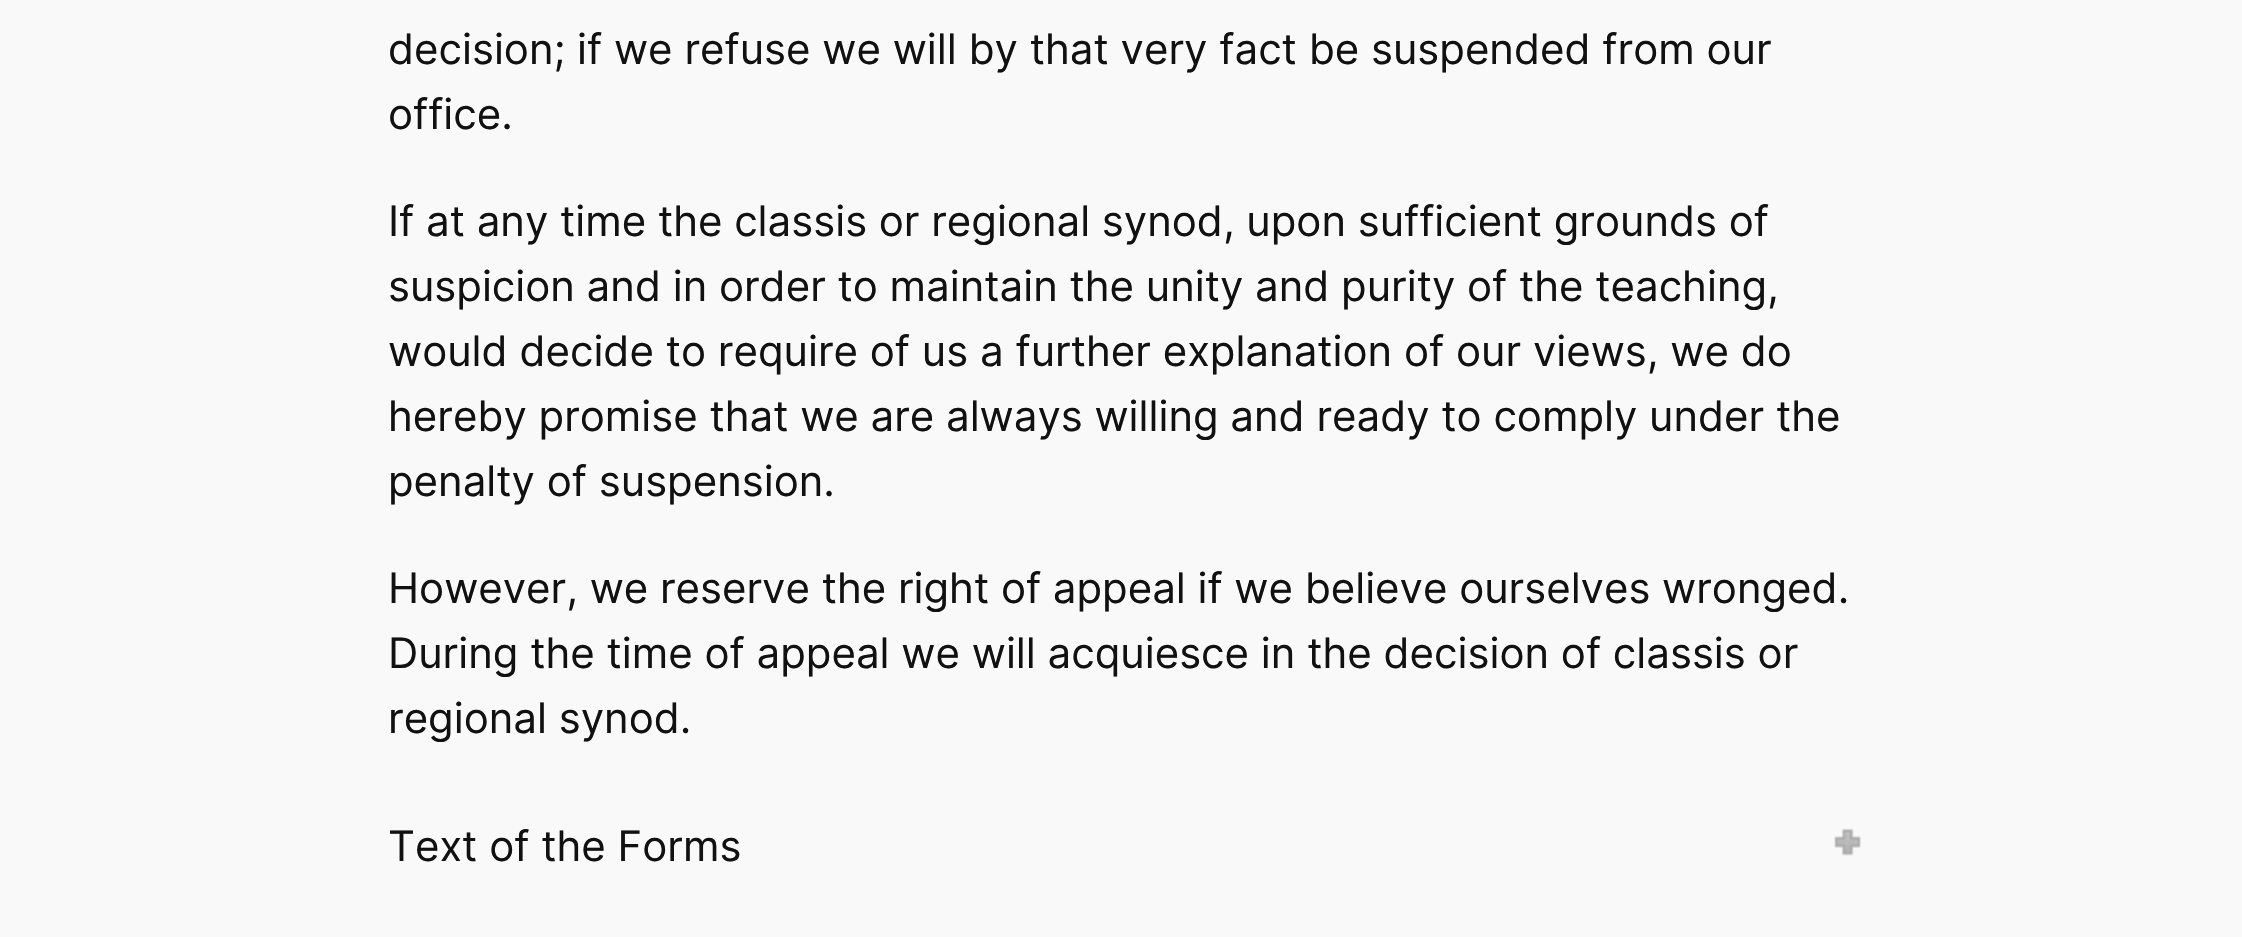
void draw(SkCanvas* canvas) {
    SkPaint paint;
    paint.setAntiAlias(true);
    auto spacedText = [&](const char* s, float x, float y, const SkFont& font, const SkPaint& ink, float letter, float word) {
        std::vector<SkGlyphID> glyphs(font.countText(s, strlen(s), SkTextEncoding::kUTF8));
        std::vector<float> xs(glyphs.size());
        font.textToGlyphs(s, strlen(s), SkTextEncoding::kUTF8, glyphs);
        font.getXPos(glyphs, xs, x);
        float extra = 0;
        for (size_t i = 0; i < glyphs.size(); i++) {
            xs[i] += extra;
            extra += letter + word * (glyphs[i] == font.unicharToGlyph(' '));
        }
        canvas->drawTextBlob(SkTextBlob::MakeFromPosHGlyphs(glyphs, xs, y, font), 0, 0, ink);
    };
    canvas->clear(0xFFF9F9F9);
    SkFont font1(fontMgr->matchFamilyStyle("Inter", SkFontStyle::Normal()), 42);
    font1.setSubpixel(true);
    paint.setColor(0xFF111111);
    canvas->drawString("decision; if we refuse we will by that very fact be suspended from our", 388, 64, font1, paint);
    canvas->drawString("office.", 388, 129, font1, paint);
    spacedText("If at any time the classis or regional synod, upon sufficient grounds of", 388, 236, font1, paint, 0, -0.1f);
    spacedText("suspicion and in order to maintain the unity and purity of the teaching,", 388, 301, font1, paint, 0, -0.1f);
    canvas->drawString("would decide to require of us a further explanation of our views, we do", 388, 366, font1, paint);
    spacedText("hereby promise that we are always willing and ready to comply under the", 388, 431, font1, paint, 0, -0.1f);
    canvas->drawString("penalty of suspension.", 388, 496, font1, paint);
    spacedText("However, we reserve the right of appeal if we believe ourselves wronged.", 388, 603, font1, paint, 0, -0.1f);
    canvas->drawString("During the time of appeal we will acquiesce in the decision of classis or", 388, 668, font1, paint);
    canvas->drawString("regional synod.", 388, 733, font1, paint);
    canvas->drawString("Text of the Forms", 388, 861, font1, paint);
    canvas->drawImageRect(SkImages::DeferredFromEncodedData(SkData::MakeFromFileName("img1.png")), SkRect::MakeXYWH(1834, 828, 27, 28), SkSamplingOptions());
}
